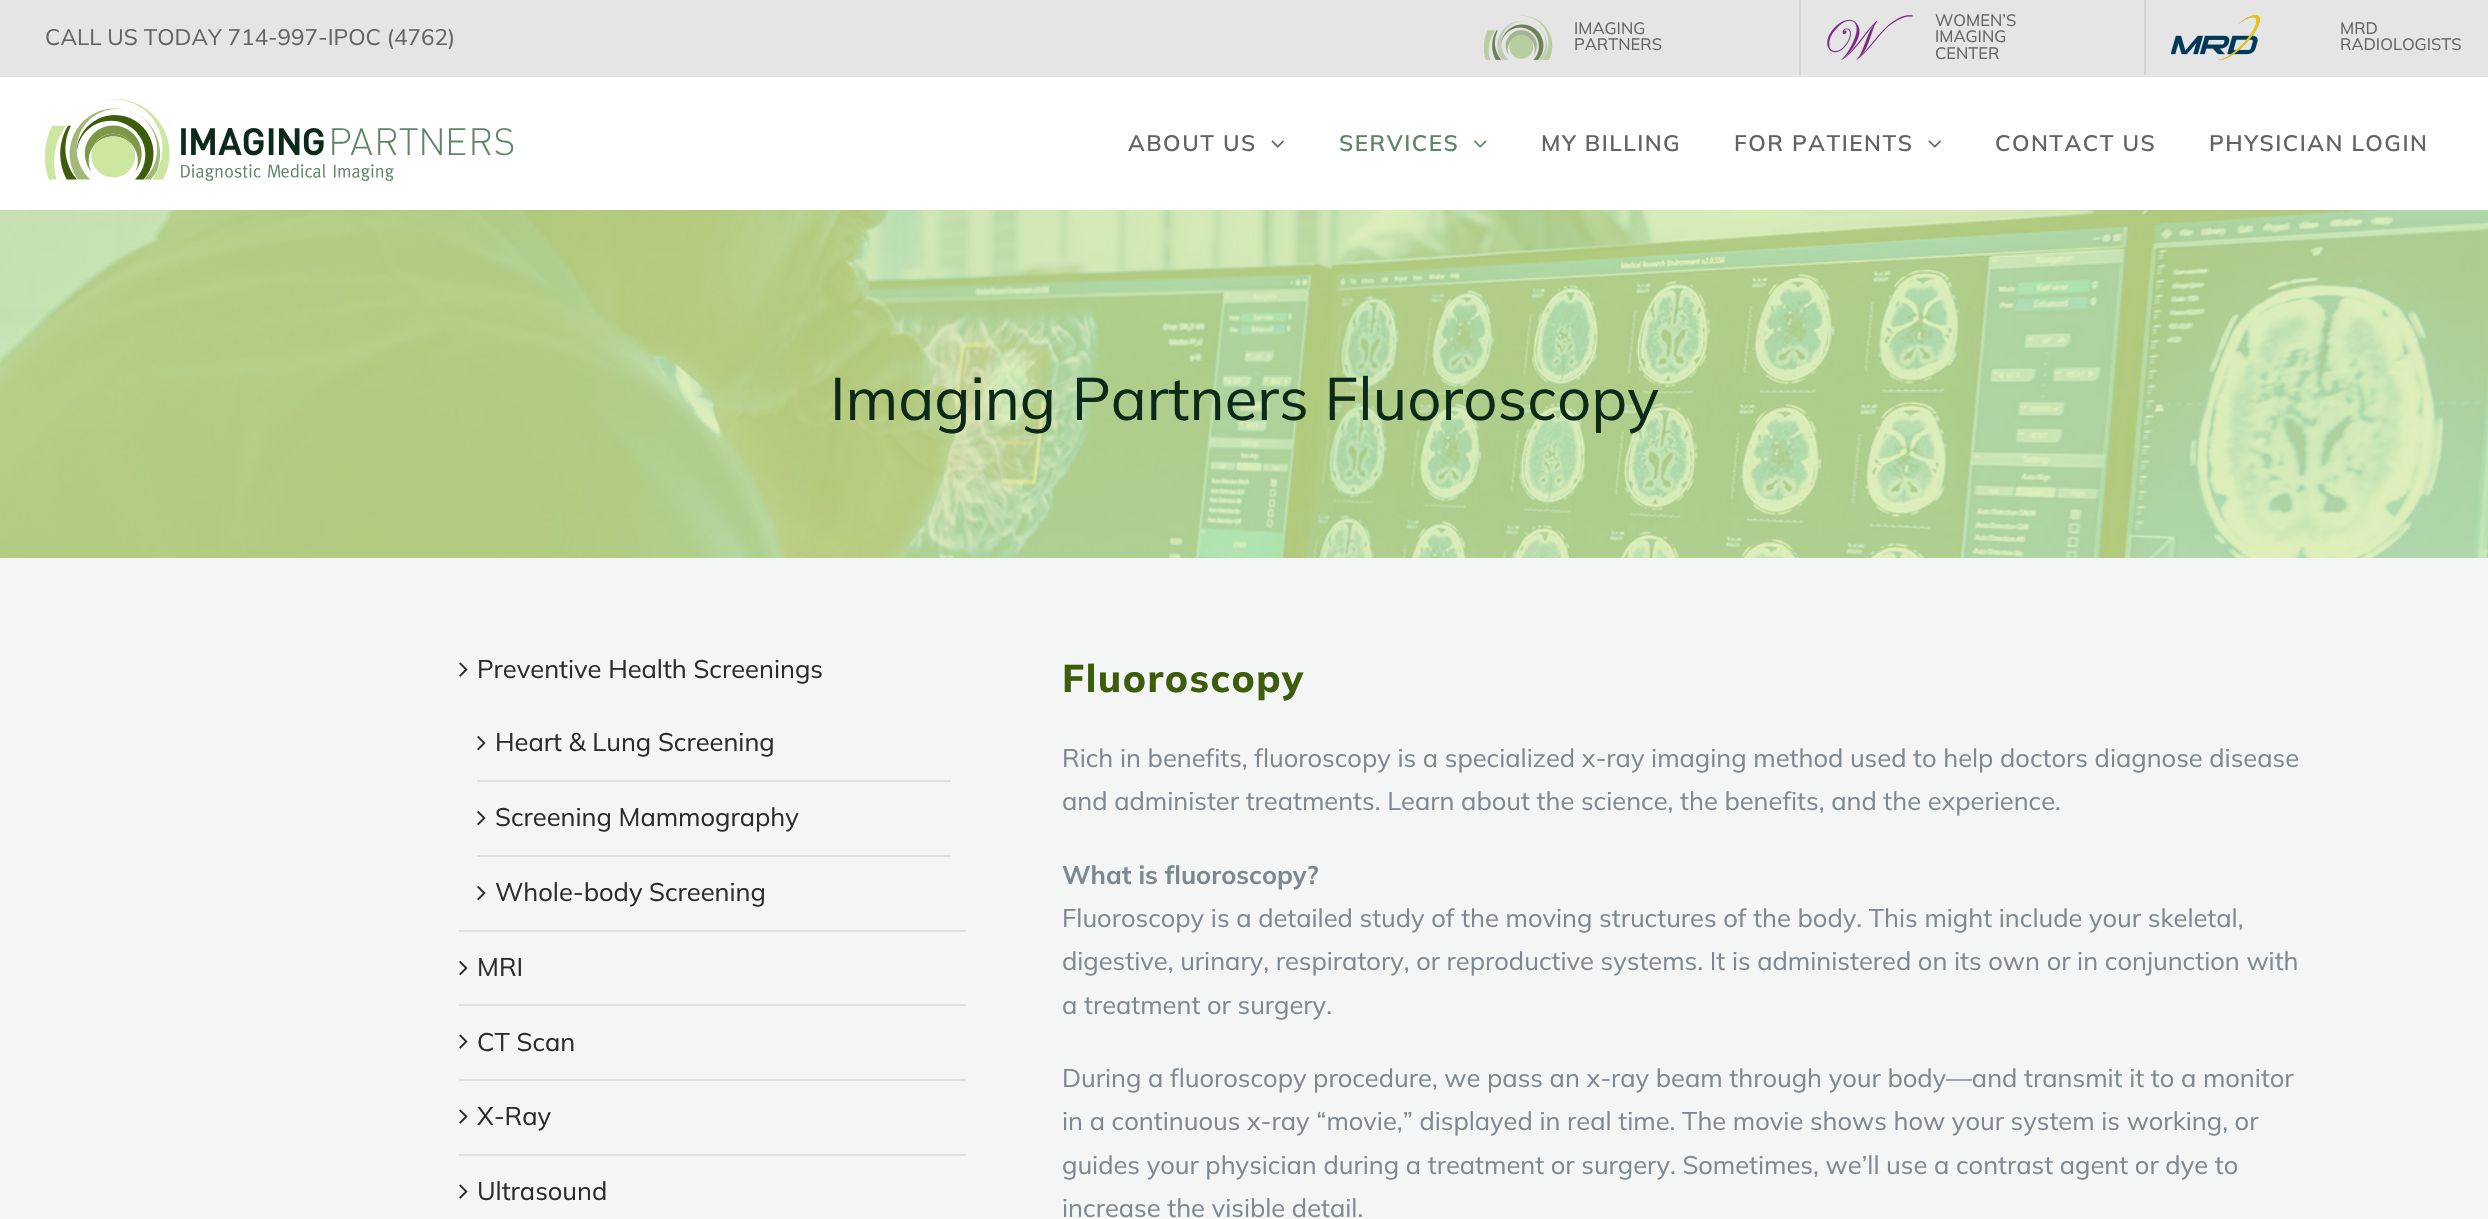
void draw(SkCanvas* canvas) {
    SkPaint paint;
    paint.setAntiAlias(true);
    auto spacedText = [&](const char* s, float x, float y, const SkFont& font, const SkPaint& ink, float letter, float word) {
        std::vector<SkGlyphID> glyphs(font.countText(s, strlen(s), SkTextEncoding::kUTF8));
        std::vector<float> xs(glyphs.size());
        font.textToGlyphs(s, strlen(s), SkTextEncoding::kUTF8, glyphs);
        font.getXPos(glyphs, xs, x);
        float extra = 0;
        for (size_t i = 0; i < glyphs.size(); i++) {
            xs[i] += extra;
            extra += letter + word * (glyphs[i] == font.unicharToGlyph(' '));
        }
        canvas->drawTextBlob(SkTextBlob::MakeFromPosHGlyphs(glyphs, xs, y, font), 0, 0, ink);
    };
    canvas->clear(0xFFF3F6F5);
    paint.setColor(0xFFE5E5E5);
    canvas->drawRect(SkRect::MakeXYWH(0, 0, 2488, 77), paint);
    SkFont font1(fontMgr->matchFamilyStyle("Mulish", SkFontStyle::Normal()), 22.5f);
    font1.setSubpixel(true);
    paint.setColor(0xFF636363);
    canvas->drawString("CALL US TODAY 714-997-IPOC (4762)", 45, 45, font1, paint);
    canvas->drawImageRect(SkImages::DeferredFromEncodedData(SkData::MakeFromFileName("img1.png")), SkRect::MakeXYWH(1484, 15, 69, 45), SkSamplingOptions());
    SkFont font2(fontMgr->matchFamilyStyle("Mulish", SkFontStyle::Normal()), 16.5f);
    font2.setSubpixel(true);
    canvas->drawString("IMAGING", 1574, 34, font2, paint);
    canvas->drawString("PARTNERS", 1574, 50, font2, paint);
    paint.setColor(0xFFD3D3D3);
    canvas->drawRect(SkRect::MakeXYWH(1799, 0, 2, 75), paint);
    canvas->drawImageRect(SkImages::DeferredFromEncodedData(SkData::MakeFromFileName("img2.png")), SkRect::MakeXYWH(1827, 15, 86, 45), SkSamplingOptions());
    paint.setColor(0xFF636363);
    canvas->drawString("WOMEN’S", 1935, 26, font2, paint);
    canvas->drawString("IMAGING", 1935, 42, font2, paint);
    canvas->drawString("CENTER", 1935, 59, font2, paint);
    paint.setColor(0xFFD3D3D3);
    canvas->drawRect(SkRect::MakeXYWH(2144, 0, 2, 75), paint);
    canvas->drawImageRect(SkImages::DeferredFromEncodedData(SkData::MakeFromFileName("img3.png")), SkRect::MakeXYWH(2171, 15, 89, 45), SkSamplingOptions());
    paint.setColor(0xFF636363);
    canvas->drawString("MRD", 2340, 34, font2, paint);
    canvas->drawString("RADIOLOGISTS", 2340, 50, font2, paint);
    paint.setColor(0xFFFFFFFF);
    canvas->drawRect(SkRect::MakeXYWH(0, 77, 2488, 133), paint);
    canvas->drawImageRect(SkImages::DeferredFromEncodedData(SkData::MakeFromFileName("img4.png")), SkRect::MakeXYWH(45, 99, 468, 82), SkSamplingOptions());
    SkFont font3(fontMgr->matchFamilyStyle("Mulish", SkFontStyle(600, SkFontStyle::kNormal_Width, SkFontStyle::kUpright_Slant)), 22.5f);
    font3.setSubpixel(true);
    paint.setColor(0xFF636363);
    spacedText("ABOUT US", 1128, 151, font3, paint, 1.5f, 0);
    canvas->drawImageRect(SkImages::DeferredFromEncodedData(SkData::MakeFromFileName("img5.png")), SkRect::MakeXYWH(1271, 140, 13, 8), SkSamplingOptions());
    paint.setColor(0xFF5F8567);
    spacedText("SERVICES", 1339, 151, font3, paint, 1.5f, 0);
    canvas->drawImageRect(SkImages::DeferredFromEncodedData(SkData::MakeFromFileName("img6.png")), SkRect::MakeXYWH(1474, 140, 13, 8), SkSamplingOptions());
    paint.setColor(0xFF636363);
    spacedText("MY BILLING", 1541, 151, font3, paint, 1.5f, 0);
    spacedText("FOR PATIENTS", 1734, 151, font3, paint, 1.5f, 0);
    canvas->drawImageRect(SkImages::DeferredFromEncodedData(SkData::MakeFromFileName("img5.png")), SkRect::MakeXYWH(1928, 140, 13, 8), SkSamplingOptions());
    spacedText("CONTACT US", 1995, 151, font3, paint, 1.5f, 0);
    spacedText("PHYSICIAN LOGIN", 2209, 151, font3, paint, 1.5f, 0);
    canvas->drawImageRect(SkImages::DeferredFromEncodedData(SkData::MakeFromFileName("img7.png")), SkRect::MakeXYWH(0, 210, 2488, 348), SkSamplingOptions());
    SkFont font4(fontMgr->matchFamilyStyle("Mulish", SkFontStyle::Normal()), 60);
    font4.setSubpixel(true);
    paint.setColor(0xFF0D291A);
    canvas->drawString("Imaging Partners Fluoroscopy", 830, 420, font4, paint);
    paint.setColor(0xFFE0DEDE);
    canvas->drawRect(SkRect::MakeXYWH(459, 930, 507, 2), paint);
    canvas->drawImageRect(SkImages::DeferredFromEncodedData(SkData::MakeFromFileName("img8.png")), SkRect::MakeXYWH(459, 662, 9, 15), SkSamplingOptions());
    SkFont font5(fontMgr->matchFamilyStyle("Mulish", SkFontStyle::Normal()), 25.5f);
    font5.setSubpixel(true);
    paint.setColor(0xFF2B2B2B);
    canvas->drawString("Preventive Health Screenings", 477, 678, font5, paint);
    paint.setColor(0xFFE0DEDE);
    canvas->drawRect(SkRect::MakeXYWH(477, 780, 474, 2), paint);
    canvas->drawImageRect(SkImages::DeferredFromEncodedData(SkData::MakeFromFileName("img9.png")), SkRect::MakeXYWH(477, 736, 9, 15), SkSamplingOptions());
    paint.setColor(0xFF2B2B2B);
    canvas->drawString("Heart & Lung Screening", 495, 751, font5, paint);
    paint.setColor(0xFFE0DEDE);
    canvas->drawRect(SkRect::MakeXYWH(477, 855, 474, 2), paint);
    canvas->drawImageRect(SkImages::DeferredFromEncodedData(SkData::MakeFromFileName("img9.png")), SkRect::MakeXYWH(477, 811, 9, 15), SkSamplingOptions());
    paint.setColor(0xFF2B2B2B);
    canvas->drawString("Screening Mammography", 495, 826, font5, paint);
    canvas->drawImageRect(SkImages::DeferredFromEncodedData(SkData::MakeFromFileName("img9.png")), SkRect::MakeXYWH(477, 886, 9, 15), SkSamplingOptions());
    canvas->drawString("Whole-body Screening", 495, 901, font5, paint);
    paint.setColor(0xFFE0DEDE);
    canvas->drawRect(SkRect::MakeXYWH(459, 1004, 507, 2), paint);
    canvas->drawImageRect(SkImages::DeferredFromEncodedData(SkData::MakeFromFileName("img9.png")), SkRect::MakeXYWH(459, 961, 9, 15), SkSamplingOptions());
    paint.setColor(0xFF2B2B2B);
    canvas->drawString("MRI", 477, 976, font5, paint);
    paint.setColor(0xFFE0DEDE);
    canvas->drawRect(SkRect::MakeXYWH(459, 1079, 507, 2), paint);
    canvas->drawImageRect(SkImages::DeferredFromEncodedData(SkData::MakeFromFileName("img8.png")), SkRect::MakeXYWH(459, 1034, 9, 15), SkSamplingOptions());
    paint.setColor(0xFF2B2B2B);
    canvas->drawString("CT Scan", 477, 1051, font5, paint);
    paint.setColor(0xFFE0DEDE);
    canvas->drawRect(SkRect::MakeXYWH(459, 1154, 507, 2), paint);
    canvas->drawImageRect(SkImages::DeferredFromEncodedData(SkData::MakeFromFileName("img8.png")), SkRect::MakeXYWH(459, 1109, 9, 15), SkSamplingOptions());
    paint.setColor(0xFF2B2B2B);
    canvas->drawString("X-Ray", 477, 1125, font5, paint);
    canvas->drawImageRect(SkImages::DeferredFromEncodedData(SkData::MakeFromFileName("img8.png")), SkRect::MakeXYWH(459, 1184, 9, 15), SkSamplingOptions());
    canvas->drawString("Ultrasound", 477, 1200, font5, paint);
    SkFont font6(fontMgr->matchFamilyStyle("Mulish", SkFontStyle(800, SkFontStyle::kNormal_Width, SkFontStyle::kUpright_Slant)), 38.5f);
    font6.setSubpixel(true);
    paint.setColor(0xFF3E5D0C);
    spacedText("Fluoroscopy", 1062, 692, font6, paint, 1.5f, 0);
    paint.setColor(0xFF7E8890);
    canvas->drawString("Rich in benefits, fluoroscopy is a specialized x-ray imaging method used to help doctors diagnose disease", 1062, 767, font5, paint);
    canvas->drawString("and administer treatments. Learn about the science, the benefits, and the experience.", 1062, 810, font5, paint);
    SkFont font7(fontMgr->matchFamilyStyle("Mulish", SkFontStyle::Bold()), 25.5f);
    font7.setSubpixel(true);
    canvas->drawString("What is fluoroscopy?", 1062, 884, font7, paint);
    canvas->drawString("Fluoroscopy is a detailed study of the moving structures of the body. This might include your skeletal,", 1062, 927, font5, paint);
    canvas->drawString("digestive, urinary, respiratory, or reproductive systems. It is administered on its own or in conjunction with", 1062, 970, font5, paint);
    canvas->drawString("a treatment or surgery.", 1062, 1014, font5, paint);
    canvas->drawString("During a fluoroscopy procedure, we pass an x-ray beam through your body—and transmit it to a monitor", 1062, 1087, font5, paint);
    canvas->drawString("in a continuous x-ray “movie,” displayed in real time. The movie shows how your system is working, or", 1062, 1130, font5, paint);
    canvas->drawString("guides your physician during a treatment or surgery. Sometimes, we’ll use a contrast agent or dye to", 1062, 1174, font5, paint);
    canvas->drawString("increase the visible detail.", 1062, 1217, font5, paint);
}
